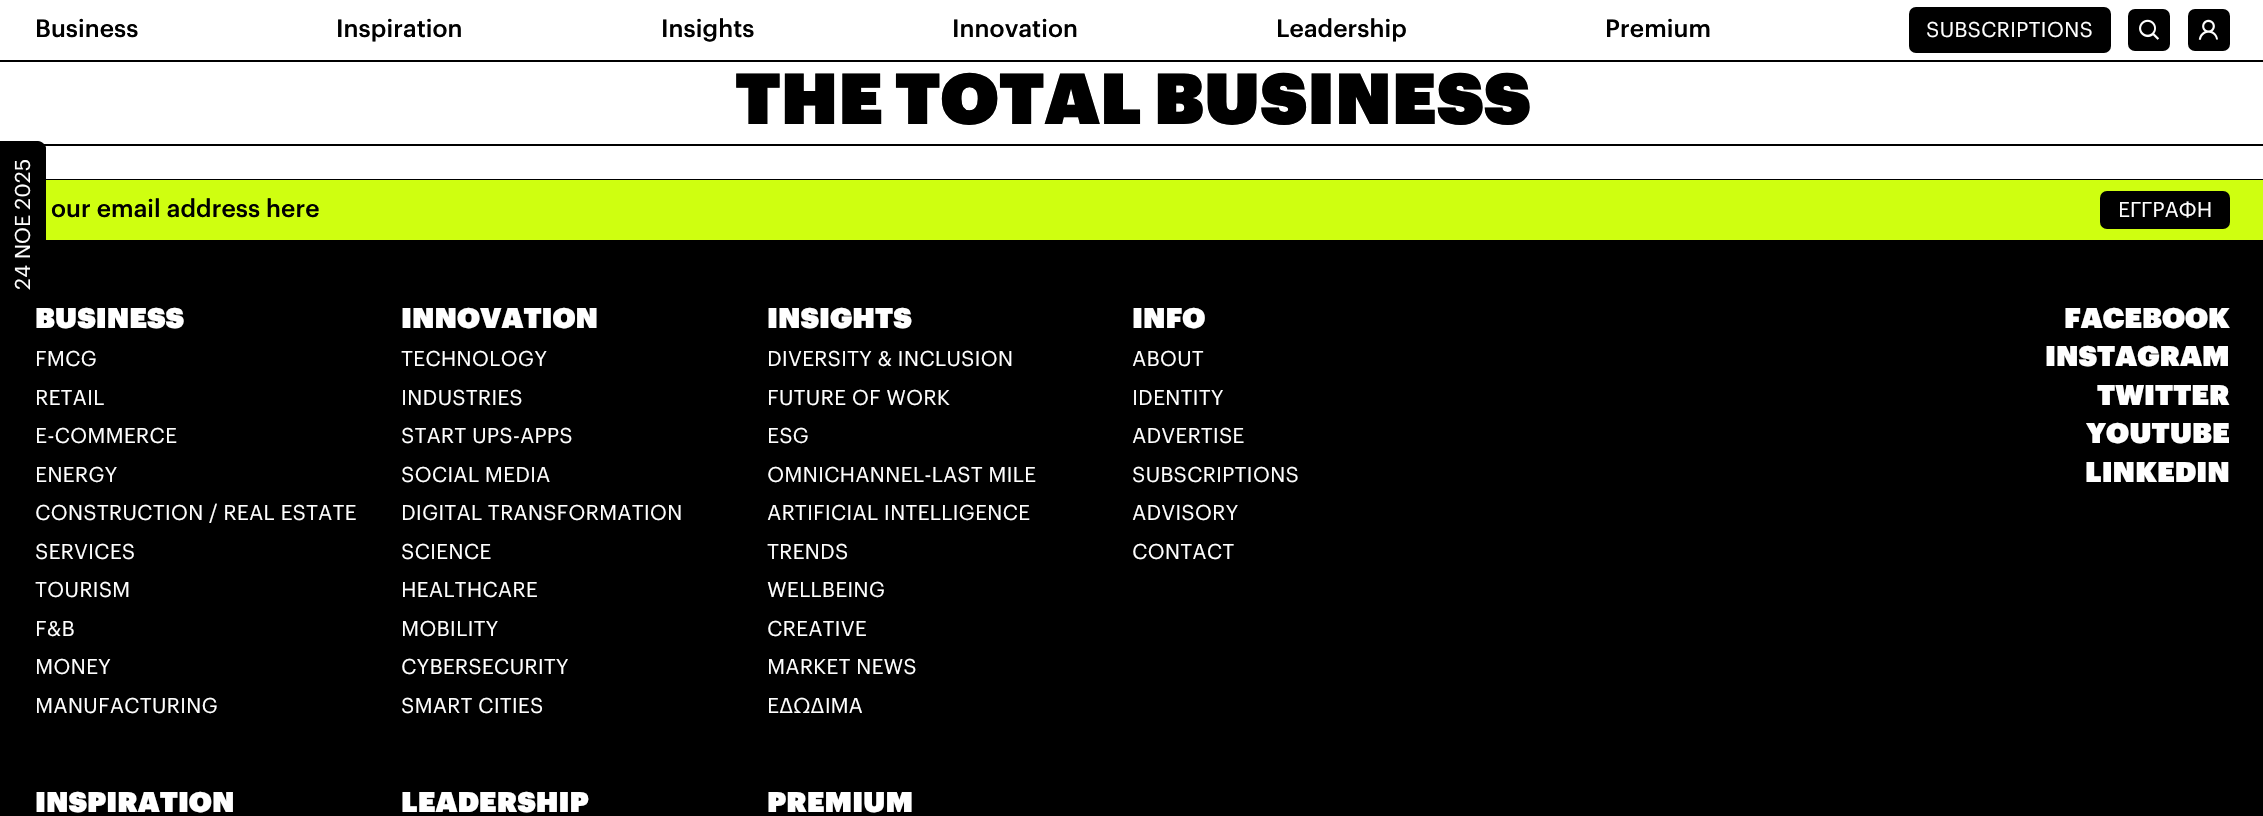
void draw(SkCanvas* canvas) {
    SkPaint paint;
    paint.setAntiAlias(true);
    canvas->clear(0xFF000000);
    paint.setColor(0xFFFFFFFF);
    canvas->drawRect(SkRect::MakeXYWH(0, 0, 2263, 144), paint);
    SkFont font1(fontMgr->matchFamilyStyle("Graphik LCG", SkFontStyle(500, SkFontStyle::kNormal_Width, SkFontStyle::kUpright_Slant)), 24.5f);
    font1.setSubpixel(true);
    paint.setColor(0xFF000000);
    canvas->drawString("Business", 35, 37, font1, paint);
    canvas->drawString("Inspiration", 336, 37, font1, paint);
    canvas->drawString("Insights", 661, 37, font1, paint);
    canvas->drawString("Innovation", 952, 37, font1, paint);
    canvas->drawString("Leadership", 1276, 37, font1, paint);
    canvas->drawString("Premium", 1605, 37, font1, paint);
    canvas->drawRoundRect(SkRect::MakeXYWH(1909, 7, 202, 46), 7, 7, paint);
    SkFont font2(fontMgr->matchFamilyStyle("Graphik LCG", SkFontStyle::Normal()), 21);
    font2.setSubpixel(true);
    paint.setColor(0xFFFFFFFF);
    canvas->drawString("SUBSCRIPTIONS", 1926, 37, font2, paint);
    paint.setColor(0xFF000000);
    canvas->drawRoundRect(SkRect::MakeXYWH(2128, 9, 42, 42), 7, 7, paint);
    canvas->drawImageRect(SkImages::DeferredFromEncodedData(SkData::MakeFromFileName("img1.png")), SkRect::MakeXYWH(2139, 19, 21, 21), SkSamplingOptions());
    canvas->drawRoundRect(SkRect::MakeXYWH(2188, 9, 42, 42), 7, 7, paint);
    canvas->drawImageRect(SkImages::DeferredFromEncodedData(SkData::MakeFromFileName("img2.png")), SkRect::MakeXYWH(2198, 19, 20, 21), SkSamplingOptions());
    canvas->drawRect(SkRect::MakeXYWH(0, 60, 2263, 2), paint);
    SkFont font3(fontMgr->matchFamilyStyle("Graphik LCG", SkFontStyle(900, SkFontStyle::kNormal_Width, SkFontStyle::kUpright_Slant)), 70.75f);
    font3.setSubpixel(true);
    canvas->drawString("THE TOTAL BUSINESS", 735, 124, font3, paint);
    paint.setColor(0xFFFFFFFF);
    canvas->drawRect(SkRect::MakeXYWH(45, 146, 2218, 33), paint);
    SkFont font4(fontMgr->matchFamilyStyle("Graphik LCG", SkFontStyle(900, SkFontStyle::kNormal_Width, SkFontStyle::kUpright_Slant)), 28);
    font4.setSubpixel(true);
    canvas->drawString("BUSINESS", 35, 328, font4, paint);
    paint.setColor(0xFF000000);
    canvas->drawPath(SkPathBuilder().moveTo(0, 308).lineTo(0, 141).lineTo(38, 141).cubicTo(42, 141, 46, 145, 46, 148).lineTo(46, 301).cubicTo(46, 305, 42, 308, 38, 308).close().detach(), paint);
    paint.setColor(0xFFFFFFFF);
    canvas->save();
    canvas->rotate(-90, 30, 290);
    canvas->drawString("24 ΝΟΕ 2025", 30, 290, font2, paint);
    canvas->restore();
    paint.setColor(0xFFCFFF10);
    canvas->drawRect(SkRect::MakeXYWH(46, 180, 2217, 60), paint);
    paint.setColor(0xFF000000);
    canvas->drawString("our email address here", 51, 217, font1, paint);
    canvas->drawRoundRect(SkRect::MakeXYWH(2100, 191, 130, 38), 7, 7, paint);
    paint.setColor(0xFFFFFFFF);
    canvas->drawString("ΕΓΓΡΑΦΗ", 2118, 217, font2, paint);
    canvas->drawString("FMCG", 35, 366, font2, paint);
    canvas->drawString("RETAIL", 35, 405, font2, paint);
    canvas->drawString("E-COMMERCE", 35, 443, font2, paint);
    canvas->drawString("ENERGY", 35, 482, font2, paint);
    canvas->drawString("CONSTRUCTION / REAL ESTATE", 35, 520, font2, paint);
    canvas->drawString("SERVICES", 35, 559, font2, paint);
    canvas->drawString("TOURISM", 35, 597, font2, paint);
    canvas->drawString("F&B", 35, 636, font2, paint);
    canvas->drawString("MONEY", 35, 674, font2, paint);
    canvas->drawString("MANUFACTURING", 35, 713, font2, paint);
    canvas->drawString("INSPIRATION", 35, 812, font4, paint);
    canvas->drawString("INNOVATION", 401, 328, font4, paint);
    canvas->drawString("TECHNOLOGY", 401, 366, font2, paint);
    canvas->drawString("INDUSTRIES", 401, 405, font2, paint);
    canvas->drawString("START UPS-APPS", 401, 443, font2, paint);
    canvas->drawString("SOCIAL MEDIA", 401, 482, font2, paint);
    canvas->drawString("DIGITAL TRANSFORMATION", 401, 520, font2, paint);
    canvas->drawString("SCIENCE", 401, 559, font2, paint);
    canvas->drawString("HEALTHCARE", 401, 597, font2, paint);
    canvas->drawString("MOBILITY", 401, 636, font2, paint);
    canvas->drawString("CYBERSECURITY", 401, 674, font2, paint);
    canvas->drawString("SMART CITIES", 401, 713, font2, paint);
    canvas->drawString("LEADERSHIP", 401, 812, font4, paint);
    canvas->drawString("INSIGHTS", 767, 328, font4, paint);
    canvas->drawString("DIVERSITY & INCLUSION", 767, 366, font2, paint);
    canvas->drawString("FUTURE OF WORK", 767, 405, font2, paint);
    canvas->drawString("ESG", 767, 443, font2, paint);
    canvas->drawString("OMNICHANNEL-LAST MILE", 767, 482, font2, paint);
    canvas->drawString("ARTIFICIAL INTELLIGENCE", 767, 520, font2, paint);
    canvas->drawString("TRENDS", 767, 559, font2, paint);
    canvas->drawString("WELLBEING", 767, 597, font2, paint);
    canvas->drawString("CREATIVE", 767, 636, font2, paint);
    canvas->drawString("MARKET NEWS", 767, 674, font2, paint);
    canvas->drawString("ΕΔΩΔΙΜΑ", 767, 713, font2, paint);
    canvas->drawString("PREMIUM", 767, 812, font4, paint);
    canvas->drawString("INFO", 1132, 328, font4, paint);
    canvas->drawString("ABOUT", 1132, 366, font2, paint);
    canvas->drawString("IDENTITY", 1132, 405, font2, paint);
    canvas->drawString("ADVERTISE", 1132, 443, font2, paint);
    canvas->drawString("SUBSCRIPTIONS", 1132, 482, font2, paint);
    canvas->drawString("ADVISORY", 1132, 520, font2, paint);
    canvas->drawString("CONTACT", 1132, 559, font2, paint);
    canvas->drawString("FACEBOOK", 2064, 328, font4, paint);
    canvas->drawString("INSTAGRAM", 2045, 366, font4, paint);
    canvas->drawString("TWITTER", 2097, 405, font4, paint);
    canvas->drawString("YOUTUBE", 2086, 443, font4, paint);
    canvas->drawString("LINKEDIN", 2085, 482, font4, paint);
}
